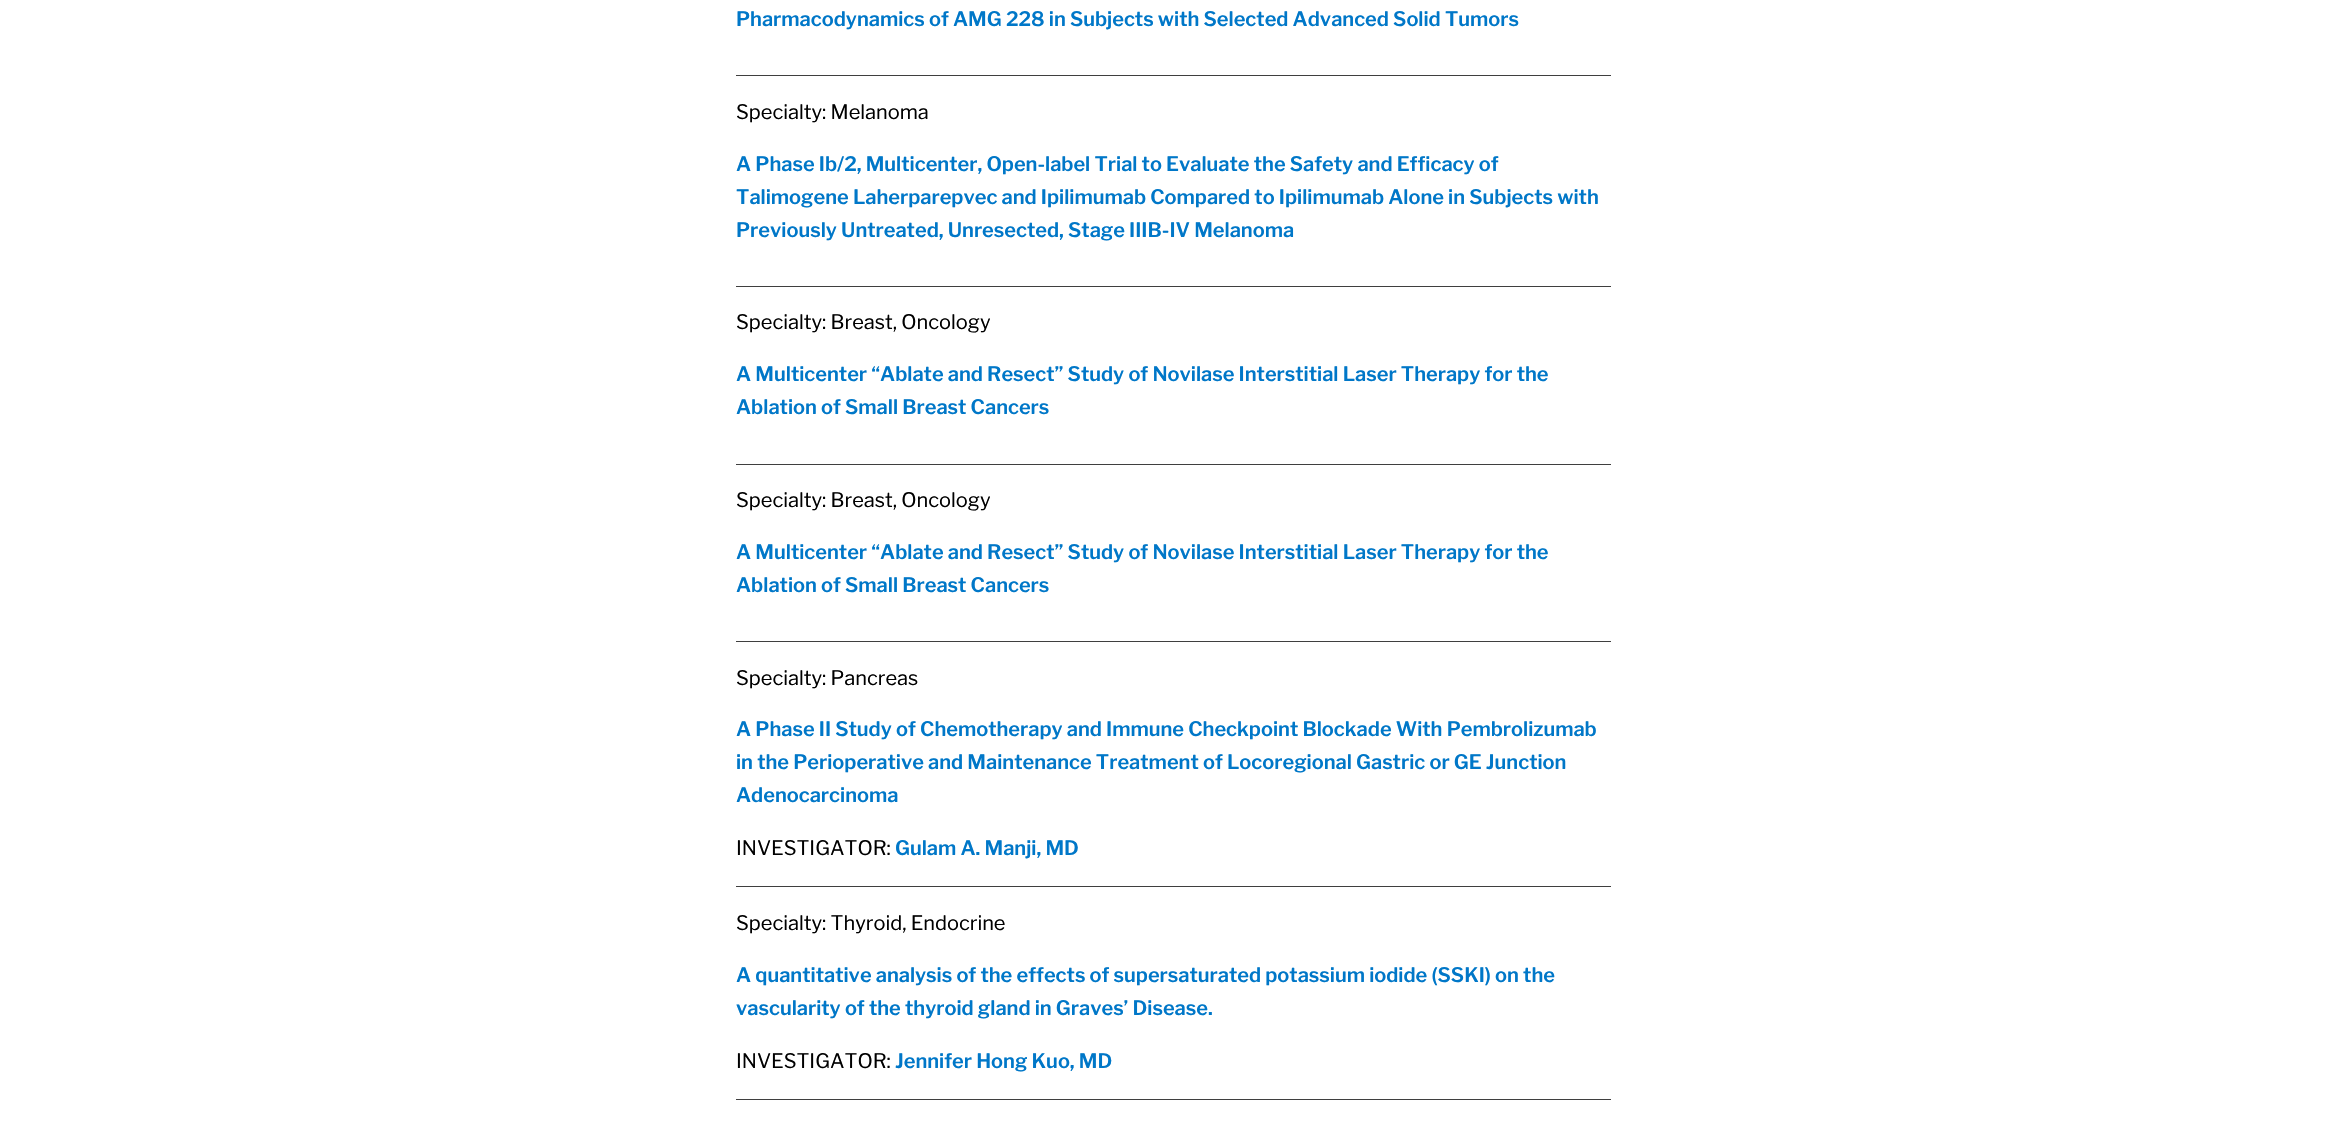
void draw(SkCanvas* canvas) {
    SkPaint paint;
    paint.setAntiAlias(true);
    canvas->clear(0xFFFFFFFF);
    paint.setColor(0xFF3F3F3F);
    canvas->drawRect(SkRect::MakeXYWH(736, 75, 875, 1), paint);
    SkFont font1(fontMgr->matchFamilyStyle("Libre Franklin", SkFontStyle(600, SkFontStyle::kNormal_Width, SkFontStyle::kUpright_Slant)), 20);
    font1.setSubpixel(true);
    paint.setColor(0xFF0077C8);
    canvas->drawString("Pharmacodynamics of AMG 228 in Subjects with Selected Advanced Solid Tumors", 736, 26, font1, paint);
    paint.setColor(0xFF3F3F3F);
    canvas->drawRect(SkRect::MakeXYWH(736, 286, 875, 1), paint);
    SkFont font2(fontMgr->matchFamilyStyle("Libre Franklin", SkFontStyle::Normal()), 20);
    font2.setSubpixel(true);
    paint.setColor(0xFF000000);
    canvas->drawString("Specialty: Melanoma", 736, 119, font2, paint);
    paint.setColor(0xFF0077C8);
    canvas->drawString("A Phase Ib/2, Multicenter, Open-label Trial to Evaluate the Safety and Efficacy of", 736, 171, font1, paint);
    canvas->drawString("Talimogene Laherparepvec and Ipilimumab Compared to Ipilimumab Alone in Subjects with", 736, 204, font1, paint);
    canvas->drawString("Previously Untreated, Unresected, Stage IIIB-IV Melanoma", 736, 237, font1, paint);
    paint.setColor(0xFF3F3F3F);
    canvas->drawRect(SkRect::MakeXYWH(736, 464, 875, 1), paint);
    paint.setColor(0xFF000000);
    canvas->drawString("Specialty: Breast, Oncology", 736, 329, font2, paint);
    paint.setColor(0xFF0077C8);
    canvas->drawString("A Multicenter “Ablate and Resect” Study of Novilase Interstitial Laser Therapy for the", 736, 381, font1, paint);
    canvas->drawString("Ablation of Small Breast Cancers", 736, 414, font1, paint);
    paint.setColor(0xFF3F3F3F);
    canvas->drawRect(SkRect::MakeXYWH(736, 641, 875, 1), paint);
    paint.setColor(0xFF000000);
    canvas->drawString("Specialty: Breast, Oncology", 736, 507, font2, paint);
    paint.setColor(0xFF0077C8);
    canvas->drawString("A Multicenter “Ablate and Resect” Study of Novilase Interstitial Laser Therapy for the", 736, 559, font1, paint);
    canvas->drawString("Ablation of Small Breast Cancers", 736, 592, font1, paint);
    paint.setColor(0xFF3F3F3F);
    canvas->drawRect(SkRect::MakeXYWH(736, 886, 875, 1), paint);
    paint.setColor(0xFF000000);
    canvas->drawString("Specialty: Pancreas", 736, 685, font2, paint);
    paint.setColor(0xFF0077C8);
    canvas->drawString("A Phase II Study of Chemotherapy and Immune Checkpoint Blockade With Pembrolizumab", 736, 736, font1, paint);
    canvas->drawString("in the Perioperative and Maintenance Treatment of Locoregional Gastric or GE Junction", 736, 769, font1, paint);
    canvas->drawString("Adenocarcinoma", 736, 802, font1, paint);
    paint.setColor(0xFF000000);
    canvas->drawString("INVESTIGATOR:", 736, 855, font2, paint);
    paint.setColor(0xFF0077C8);
    canvas->drawString("Gulam A. Manji, MD", 895, 855, font1, paint);
    paint.setColor(0xFF3F3F3F);
    canvas->drawRect(SkRect::MakeXYWH(736, 1099, 875, 1), paint);
    paint.setColor(0xFF000000);
    canvas->drawString("Specialty: Thyroid, Endocrine", 736, 930, font2, paint);
    paint.setColor(0xFF0077C8);
    canvas->drawString("A quantitative analysis of the effects of supersaturated potassium iodide (SSKI) on the", 736, 982, font1, paint);
    canvas->drawString("vascularity of the thyroid gland in Graves’ Disease.", 736, 1015, font1, paint);
    paint.setColor(0xFF000000);
    canvas->drawString("INVESTIGATOR:", 736, 1068, font2, paint);
    paint.setColor(0xFF0077C8);
    canvas->drawString("Jennifer Hong Kuo, MD", 895, 1068, font1, paint);
}
